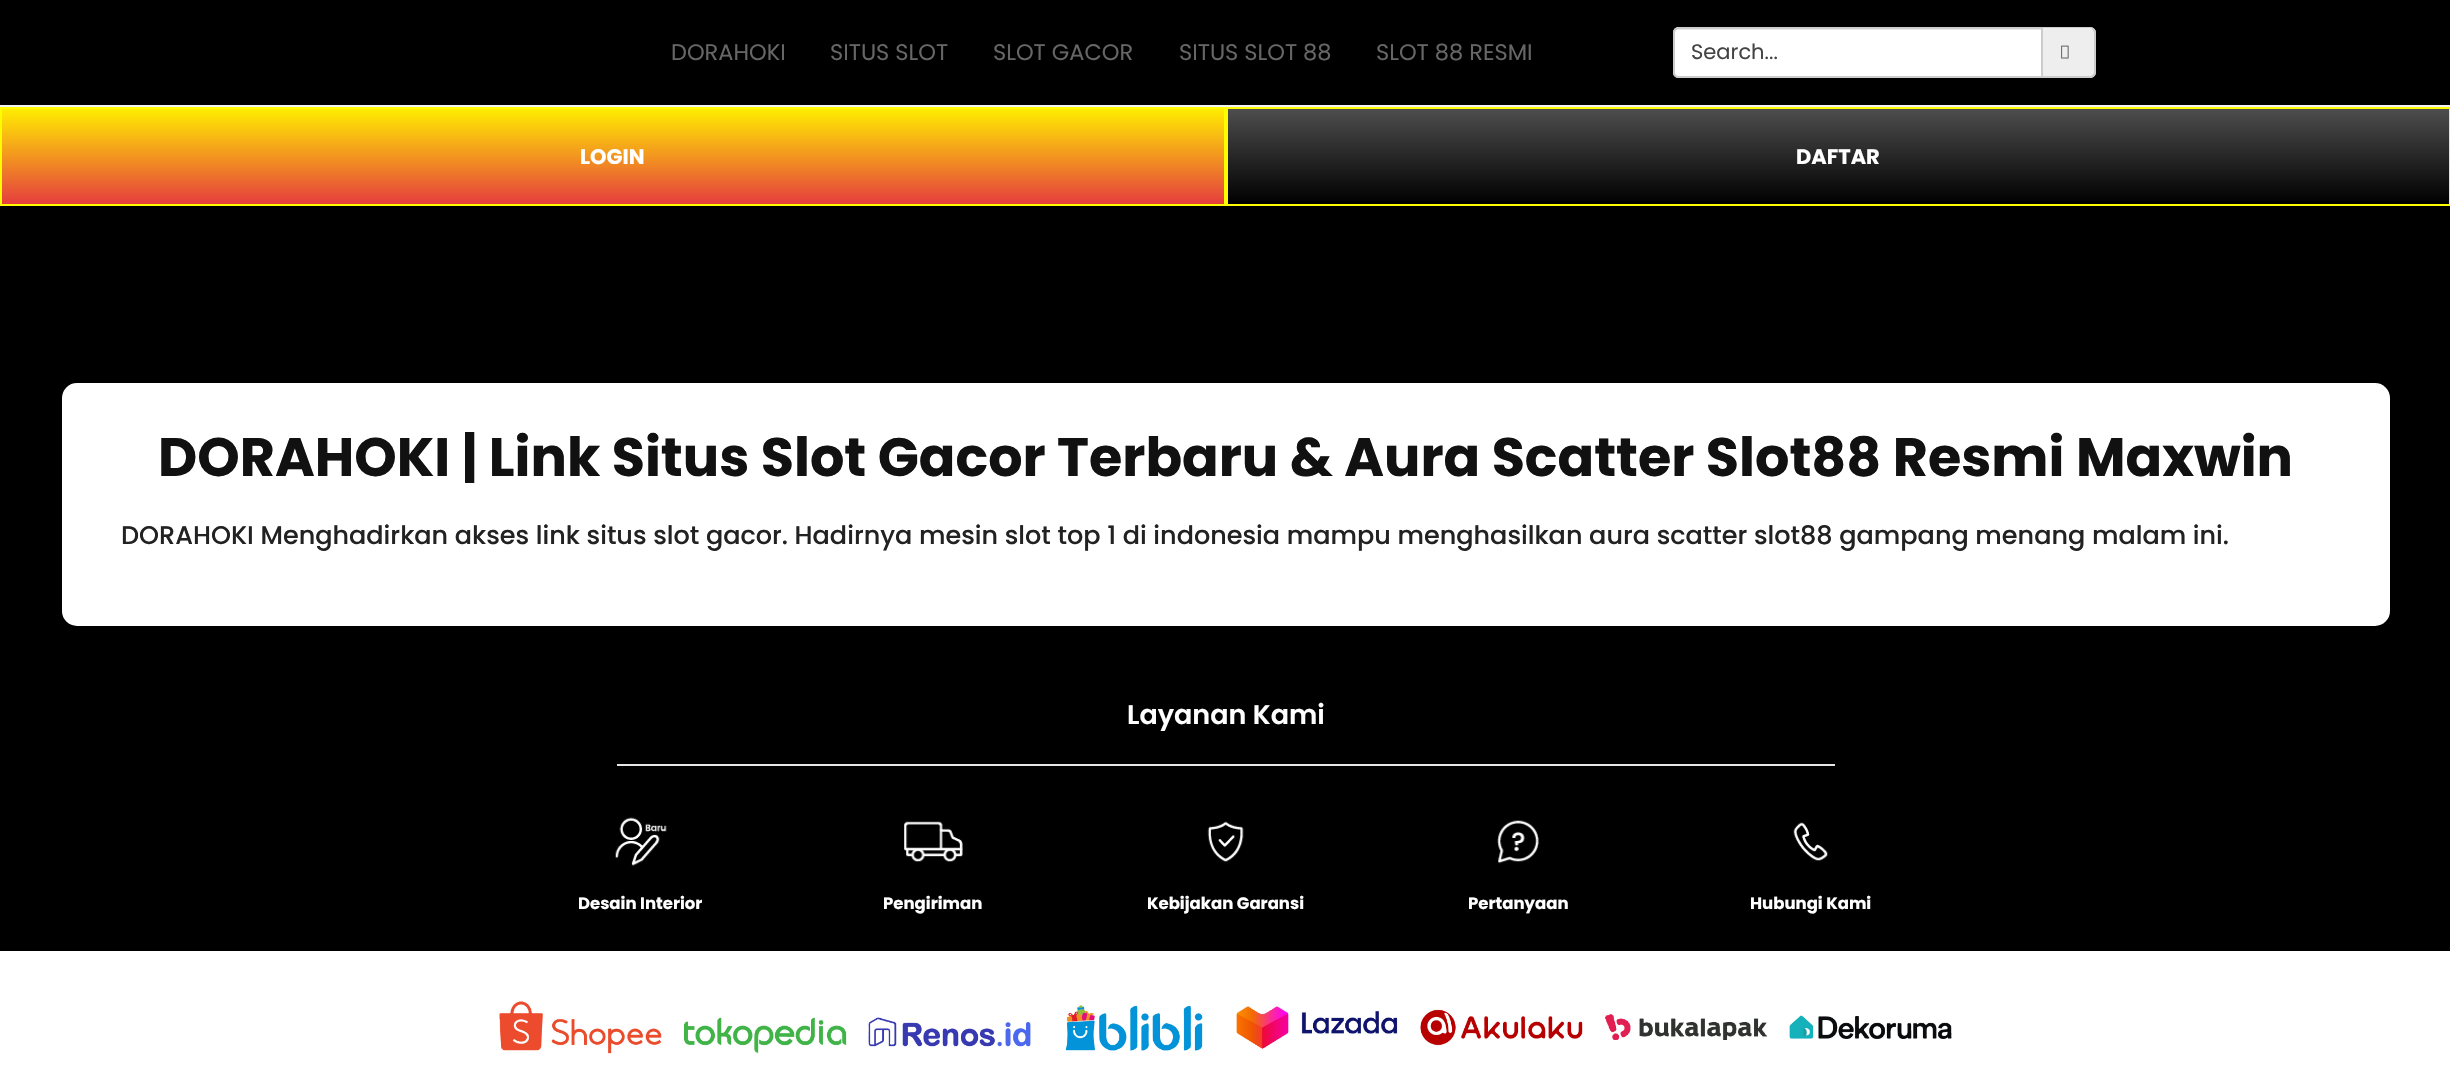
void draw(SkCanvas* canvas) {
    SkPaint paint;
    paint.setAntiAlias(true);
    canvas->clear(0xFF000000);
    paint.setColor(0xFFF1F1F1);
    canvas->drawRect(SkRect::MakeXYWH(0, 105, 2450, 2), paint);
    SkFont font1(fontMgr->matchFamilyStyle("Poppins", SkFontStyle::Normal()), 22.5f);
    font1.setSubpixel(true);
    paint.setColor(0xFF666666);
    canvas->drawString("DORAHOKI", 671, 60, font1, paint);
    canvas->drawString("SITUS SLOT", 830, 60, font1, paint);
    canvas->drawString("SLOT GACOR", 993, 60, font1, paint);
    canvas->drawString("SITUS SLOT 88", 1179, 60, font1, paint);
    canvas->drawString("SLOT 88 RESMI", 1376, 60, font1, paint);
    paint.setColor(0xFFFFFFFF);
    canvas->drawPath(SkPathBuilder().moveTo(1679, 27).lineTo(2043, 27).lineTo(2043, 78).lineTo(1679, 78).cubicTo(1675.5f, 78, 1673, 75.5f, 1673, 72).lineTo(1673, 33).cubicTo(1673, 29.5f, 1675.5f, 27, 1679, 27).close().detach(), paint);
    paint.setColor(0xFFECECEC);
    canvas->drawPath(SkPathBuilder().moveTo(1678, 30).lineTo(2042, 30).lineTo(2042, 29).lineTo(1679, 29).cubicTo(1676, 29, 1674, 31, 1674, 34).cubicTo(1674, 32, 1676, 30, 1678, 30).close().detach(), paint);
    paint.setStyle(SkPaint::kStroke_Style);
    paint.setStrokeWidth(2);
    paint.setColor(0xFFCCCCCC);
    canvas->drawPath(SkPathBuilder().moveTo(1679, 28).lineTo(2042, 28).lineTo(2042, 77).lineTo(1679, 77).cubicTo(1676, 77, 1674, 75, 1674, 72).lineTo(1674, 33).cubicTo(1674, 30, 1676, 28, 1679, 28).close().detach(), paint);
    SkFont font2(fontMgr->matchFamilyStyle("Poppins", SkFontStyle::Normal()), 21);
    font2.setSubpixel(true);
    paint.setStyle(SkPaint::kFill_Style);
    paint.setColor(0xFF444444);
    canvas->drawString("Search...", 1691, 59, font2, paint);
    paint.setColor(0xFFEEEEEE);
    canvas->drawPath(SkPathBuilder().moveTo(2043, 27).lineTo(2090, 27).cubicTo(2093.5f, 27, 2096, 29.5f, 2096, 33).lineTo(2096, 72).cubicTo(2096, 75.5f, 2093.5f, 78, 2090, 78).lineTo(2043, 78).close().detach(), paint);
    paint.setColor(0xFFCCCCCC);
    canvas->drawPath(SkPathBuilder(SkPathFillType::kEvenOdd).moveTo(2043, 27).lineTo(2090, 27).cubicTo(2093, 27, 2096, 30, 2096, 33).lineTo(2096, 72).cubicTo(2096, 75, 2093, 78, 2090, 78).lineTo(2043, 78).close().moveTo(2043, 28).lineTo(2090, 28).cubicTo(2092, 28, 2094, 31, 2094, 33).lineTo(2094, 72).cubicTo(2094, 74, 2092, 76, 2090, 76).lineTo(2043, 76).close().detach(), paint);
    canvas->drawImageRect(SkImages::DeferredFromEncodedData(SkData::MakeFromFileName("img1.png")), SkRect::MakeXYWH(2061, 45, 8, 14), SkSamplingOptions());
    {
        const SkColor colors[] = {0xFFFFEE00, 0xFFE63E3E};
        const float stops[] = {0, 1};
        const SkPoint ends[] = {{613, 108}, {613, 204}};
        paint.setShader(SkGradientShader::MakeLinear(ends, colors, stops, 2, SkTileMode::kClamp));
        paint.setAlpha(255);
    }
    canvas->drawRect(SkRect::MakeXYWH(2, 109, 1222, 95), paint);
    paint.setStyle(SkPaint::kStroke_Style);
    paint.setShader(nullptr);
    paint.setColor(0xFFFFFB00);
    canvas->drawRect(SkRect::MakeXYWH(1, 108, 1224, 97), paint);
    SkFont font3(fontMgr->matchFamilyStyle("Poppins", SkFontStyle::Bold()), 21);
    font3.setSubpixel(true);
    paint.setStyle(SkPaint::kFill_Style);
    paint.setColor(0xFFFFFFFF);
    canvas->drawString("LOGIN", 580, 164, font3, paint);
    {
        const SkColor colors[] = {0xFF4E4E4E, 0xFF000000};
        const float stops[] = {0, 1};
        const SkPoint ends[] = {{1838, 108}, {1838, 204}};
        paint.setShader(SkGradientShader::MakeLinear(ends, colors, stops, 2, SkTileMode::kClamp));
        paint.setAlpha(255);
    }
    canvas->drawRect(SkRect::MakeXYWH(1228, 109, 1221, 92), paint);
    paint.setStyle(SkPaint::kStroke_Style);
    paint.setShader(nullptr);
    paint.setColor(0xFFFFFB00);
    canvas->drawRect(SkRect::MakeXYWH(1227, 108, 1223, 97), paint);
    paint.setStyle(SkPaint::kFill_Style);
    paint.setColor(0xFFFFFFFF);
    canvas->drawString("DAFTAR", 1796, 164, font3, paint);
    canvas->drawRoundRect(SkRect::MakeXYWH(62, 383, 2328, 243), 15, 15, paint);
    SkFont font4(fontMgr->matchFamilyStyle("Poppins", SkFontStyle::Bold()), 54);
    font4.setSubpixel(true);
    paint.setColor(0xFF111111);
    canvas->drawString("DORAHOKI | Link Situs Slot Gacor Terbaru & Aura Scatter Slot88 Resmi Maxwin", 158, 476, font4, paint);
    SkFont font5(fontMgr->matchFamilyStyle("Poppins", SkFontStyle(500, SkFontStyle::kNormal_Width, SkFontStyle::kUpright_Slant)), 25.5f);
    font5.setSubpixel(true);
    paint.setColor(0xFF222222);
    canvas->drawString("DORAHOKI Menghadirkan akses link situs slot gacor. Hadirnya mesin slot top 1 di indonesia mampu menghasilkan aura scatter slot88 gampang menang malam ini.", 121, 544, font5, paint);
    paint.setColor(0xFFFFFFFF);
    canvas->drawRect(SkRect::MakeXYWH(0, 951, 2450, 117), paint);
    SkFont font6(fontMgr->matchFamilyStyle("Poppins", SkFontStyle(600, SkFontStyle::kNormal_Width, SkFontStyle::kUpright_Slant)), 27);
    font6.setSubpixel(true);
    canvas->drawString("Layanan Kami", 1127, 724, font6, paint);
    paint.setColor(0xFFE6E6E6);
    canvas->drawRect(SkRect::MakeXYWH(617, 764, 1218, 2), paint);
    canvas->drawImageRect(SkImages::DeferredFromEncodedData(SkData::MakeFromFileName("img2.png")), SkRect::MakeXYWH(615, 817, 52, 49), SkSamplingOptions());
    SkFont font7(fontMgr->matchFamilyStyle("Poppins", SkFontStyle::Bold()), 16.5f);
    font7.setSubpixel(true);
    paint.setColor(0xFFFFFFFF);
    canvas->drawString("Desain Interior", 578, 909, font7, paint);
    canvas->drawImageRect(SkImages::DeferredFromEncodedData(SkData::MakeFromFileName("img3.png")), SkRect::MakeXYWH(904, 821, 59, 41), SkSamplingOptions());
    canvas->drawString("Pengiriman", 883, 909, font7, paint);
    canvas->drawImageRect(SkImages::DeferredFromEncodedData(SkData::MakeFromFileName("img4.png")), SkRect::MakeXYWH(1207, 821, 37, 41), SkSamplingOptions());
    canvas->drawString("Kebijakan Garansi", 1147, 909, font7, paint);
    canvas->drawImageRect(SkImages::DeferredFromEncodedData(SkData::MakeFromFileName("img5.png")), SkRect::MakeXYWH(1497, 820, 42, 44), SkSamplingOptions());
    canvas->drawString("Pertanyaan", 1468, 909, font7, paint);
    canvas->drawImageRect(SkImages::DeferredFromEncodedData(SkData::MakeFromFileName("img6.png")), SkRect::MakeXYWH(1793, 822, 35, 39), SkSamplingOptions());
    canvas->drawString("Hubungi Kami", 1750, 909, font7, paint);
    canvas->drawImageRect(SkImages::DeferredFromEncodedData(SkData::MakeFromFileName("img7.png")), SkRect::MakeXYWH(499, 1001, 163, 53), SkSamplingOptions());
    canvas->drawImageRect(SkImages::DeferredFromEncodedData(SkData::MakeFromFileName("img8.png")), SkRect::MakeXYWH(683, 1017, 164, 37), SkSamplingOptions());
    canvas->drawImageRect(SkImages::DeferredFromEncodedData(SkData::MakeFromFileName("img9.png")), SkRect::MakeXYWH(868, 1017, 164, 30), SkSamplingOptions());
    canvas->drawImageRect(SkImages::DeferredFromEncodedData(SkData::MakeFromFileName("img10.png")), SkRect::MakeXYWH(1065, 1005, 139, 46), SkSamplingOptions());
    canvas->drawImageRect(SkImages::DeferredFromEncodedData(SkData::MakeFromFileName("img11.png")), SkRect::MakeXYWH(1236, 1006, 162, 43), SkSamplingOptions());
    canvas->drawImageRect(SkImages::DeferredFromEncodedData(SkData::MakeFromFileName("img12.png")), SkRect::MakeXYWH(1420, 1009, 163, 37), SkSamplingOptions());
    canvas->drawImageRect(SkImages::DeferredFromEncodedData(SkData::MakeFromFileName("img13.png")), SkRect::MakeXYWH(1605, 1014, 163, 26), SkSamplingOptions());
    canvas->drawImageRect(SkImages::DeferredFromEncodedData(SkData::MakeFromFileName("img14.png")), SkRect::MakeXYWH(1789, 1015, 163, 24), SkSamplingOptions());
}
